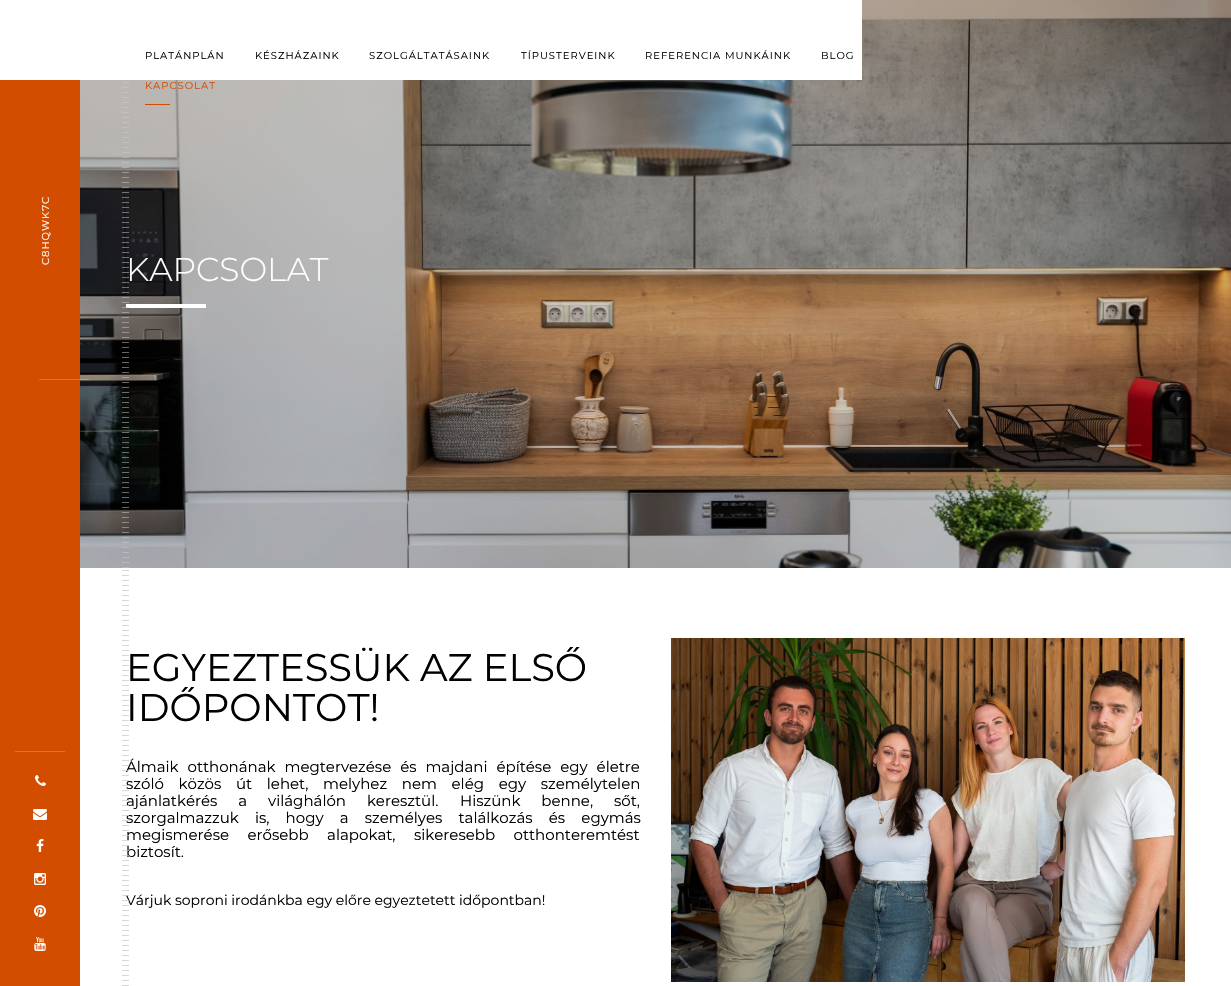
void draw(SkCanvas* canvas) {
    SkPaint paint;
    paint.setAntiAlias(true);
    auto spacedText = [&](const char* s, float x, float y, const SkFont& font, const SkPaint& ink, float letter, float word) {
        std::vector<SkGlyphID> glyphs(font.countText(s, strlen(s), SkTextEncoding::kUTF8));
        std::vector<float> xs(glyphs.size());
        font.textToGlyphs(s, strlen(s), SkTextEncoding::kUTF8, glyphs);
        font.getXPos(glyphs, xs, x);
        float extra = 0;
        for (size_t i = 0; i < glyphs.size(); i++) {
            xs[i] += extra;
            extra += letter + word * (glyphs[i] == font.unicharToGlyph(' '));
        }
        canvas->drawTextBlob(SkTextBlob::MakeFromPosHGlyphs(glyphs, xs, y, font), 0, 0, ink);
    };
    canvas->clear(0xFFFFFFFF);
    canvas->drawImageRect(SkImages::DeferredFromEncodedData(SkData::MakeFromFileName("img8.png")), SkRect::MakeXYWH(80, 0, 1151, 568), SkSamplingOptions());
    paint.setColor(0xFFFFFFFF);
    canvas->drawRect(SkRect::MakeXYWH(80, 0, 782, 80), paint);
    SkFont font1(fontMgr->matchFamilyStyle("Montserrat", SkFontStyle::Normal()), 10);
    font1.setSubpixel(true);
    paint.setColor(0xFF000000);
    spacedText("PLATÁNPLÁN", 145, 59, font1, paint, 1, 0);
    spacedText("KÉSZHÁZAINK", 255, 59, font1, paint, 1, 0);
    spacedText("SZOLGÁLTATÁSAINK", 369, 59, font1, paint, 1, 0);
    spacedText("TÍPUSTERVEINK", 521, 59, font1, paint, 1, 0);
    spacedText("REFERENCIA MUNKÁINK", 645, 59, font1, paint, 1, 0);
    spacedText("BLOG", 821, 59, font1, paint, 1, 0);
    paint.setColor(0xFFD24D00);
    spacedText("KAPCSOLAT", 145, 89, font1, paint, 1, 0);
    canvas->drawRect(SkRect::MakeXYWH(145, 104, 25, 1), paint);
    canvas->drawRect(SkRect::MakeXYWH(0, 80, 80, 906), paint);
    paint.setColor(0xFFFFFFFF);
    canvas->save();
    canvas->rotate(-90, 49, 265);
    spacedText("C8HQWK7C", 49, 265, font1, paint, 1, 0);
    canvas->restore();
    paint.setColor(0x36FFFFFF);
    canvas->drawRect(SkRect::MakeXYWH(39, 379, 50, 1), paint);
    paint.setColor(0xFFDB7236);
    canvas->drawRect(SkRect::MakeXYWH(15, 751, 50, 1), paint);
    canvas->drawImageRect(SkImages::DeferredFromEncodedData(SkData::MakeFromFileName("img1.png")), SkRect::MakeXYWH(35, 775, 11, 11), SkSamplingOptions());
    canvas->drawImageRect(SkImages::DeferredFromEncodedData(SkData::MakeFromFileName("img2.png")), SkRect::MakeXYWH(33, 809, 14, 11), SkSamplingOptions());
    canvas->drawImageRect(SkImages::DeferredFromEncodedData(SkData::MakeFromFileName("img3.png")), SkRect::MakeXYWH(36, 839, 8, 13), SkSamplingOptions());
    canvas->drawImageRect(SkImages::DeferredFromEncodedData(SkData::MakeFromFileName("img4.png")), SkRect::MakeXYWH(34, 873, 12, 12), SkSamplingOptions());
    canvas->drawImageRect(SkImages::DeferredFromEncodedData(SkData::MakeFromFileName("img5.png")), SkRect::MakeXYWH(34, 905, 12, 12), SkSamplingOptions());
    canvas->drawImageRect(SkImages::DeferredFromEncodedData(SkData::MakeFromFileName("img6.png")), SkRect::MakeXYWH(34, 937, 12, 14), SkSamplingOptions());
    paint.setColor(0xFFFFFFFF);
    canvas->drawRect(SkRect::MakeXYWH(126, 304, 80, 4), paint);
    canvas->drawImageRect(SkImages::DeferredFromEncodedData(SkData::MakeFromFileName("img7.png")), SkRect::MakeXYWH(122, 82, 7, 486), SkSamplingOptions());
    SkFont font2(fontMgr->matchFamilyStyle("Montserrat", SkFontStyle(100, SkFontStyle::kNormal_Width, SkFontStyle::kUpright_Slant)), 33);
    font2.setSubpixel(true);
    canvas->drawString("KAPCSOLAT", 126, 281, font2, paint);
    SkFont font3(fontMgr->matchFamilyStyle("Montserrat", SkFontStyle::Normal()), 15);
    font3.setSubpixel(true);
    paint.setColor(0xFF000000);
    spacedText("Álmaik otthonának megtervezése és majdani építése egy életre", 126, 772, font3, paint, 0, 5);
    spacedText("szóló közös út lehet, melyhez nem elég egy személytelen", 126, 789, font3, paint, 0, 10.75f);
    spacedText("ajánlatkérés a világhálón keresztül.", 126, 806, font3, paint, 0, 17);
    spacedText("szorgalmazzuk is, hogy a személyes találkozás és egymás", 126, 823, font3, paint, 0, 12.25f);
    spacedText("megismerése erősebb alapokat, sikeresebb otthonteremtést", 126, 840, font3, paint, 0, 14.5f);
    canvas->drawString("biztosít.", 126, 857, font3, paint);
    SkFont font4(fontMgr->matchFamilyStyle("Montserrat", SkFontStyle::Normal()), 14);
    font4.setSubpixel(true);
    canvas->drawString("Várjuk soproni irodánkba egy előre egyeztetett időpontban!", 126, 905, font4, paint);
    canvas->drawImageRect(SkImages::DeferredFromEncodedData(SkData::MakeFromFileName("img10.png")), SkRect::MakeXYWH(122, 570, 7, 416), SkSamplingOptions());
    canvas->drawImageRect(SkImages::DeferredFromEncodedData(SkData::MakeFromFileName("img9.png")), SkRect::MakeXYWH(122, 570, 7, 416), SkSamplingOptions());
    SkFont font5(fontMgr->matchFamilyStyle("Montserrat", SkFontStyle::Normal()), 38.5f);
    font5.setSubpixel(true);
    canvas->drawString("EGYEZTESSÜK AZ ELSŐ", 126, 681, font5, paint);
    canvas->drawString("IDŐPONTOT!", 126, 721, font5, paint);
    spacedText("Hiszünk benne, sőt,", 460, 806, font3, paint, 0, 17);
    canvas->drawImageRect(SkImages::DeferredFromEncodedData(SkData::MakeFromFileName("img11.png")), SkRect::MakeXYWH(671, 638, 514, 344), SkSamplingOptions());
}
